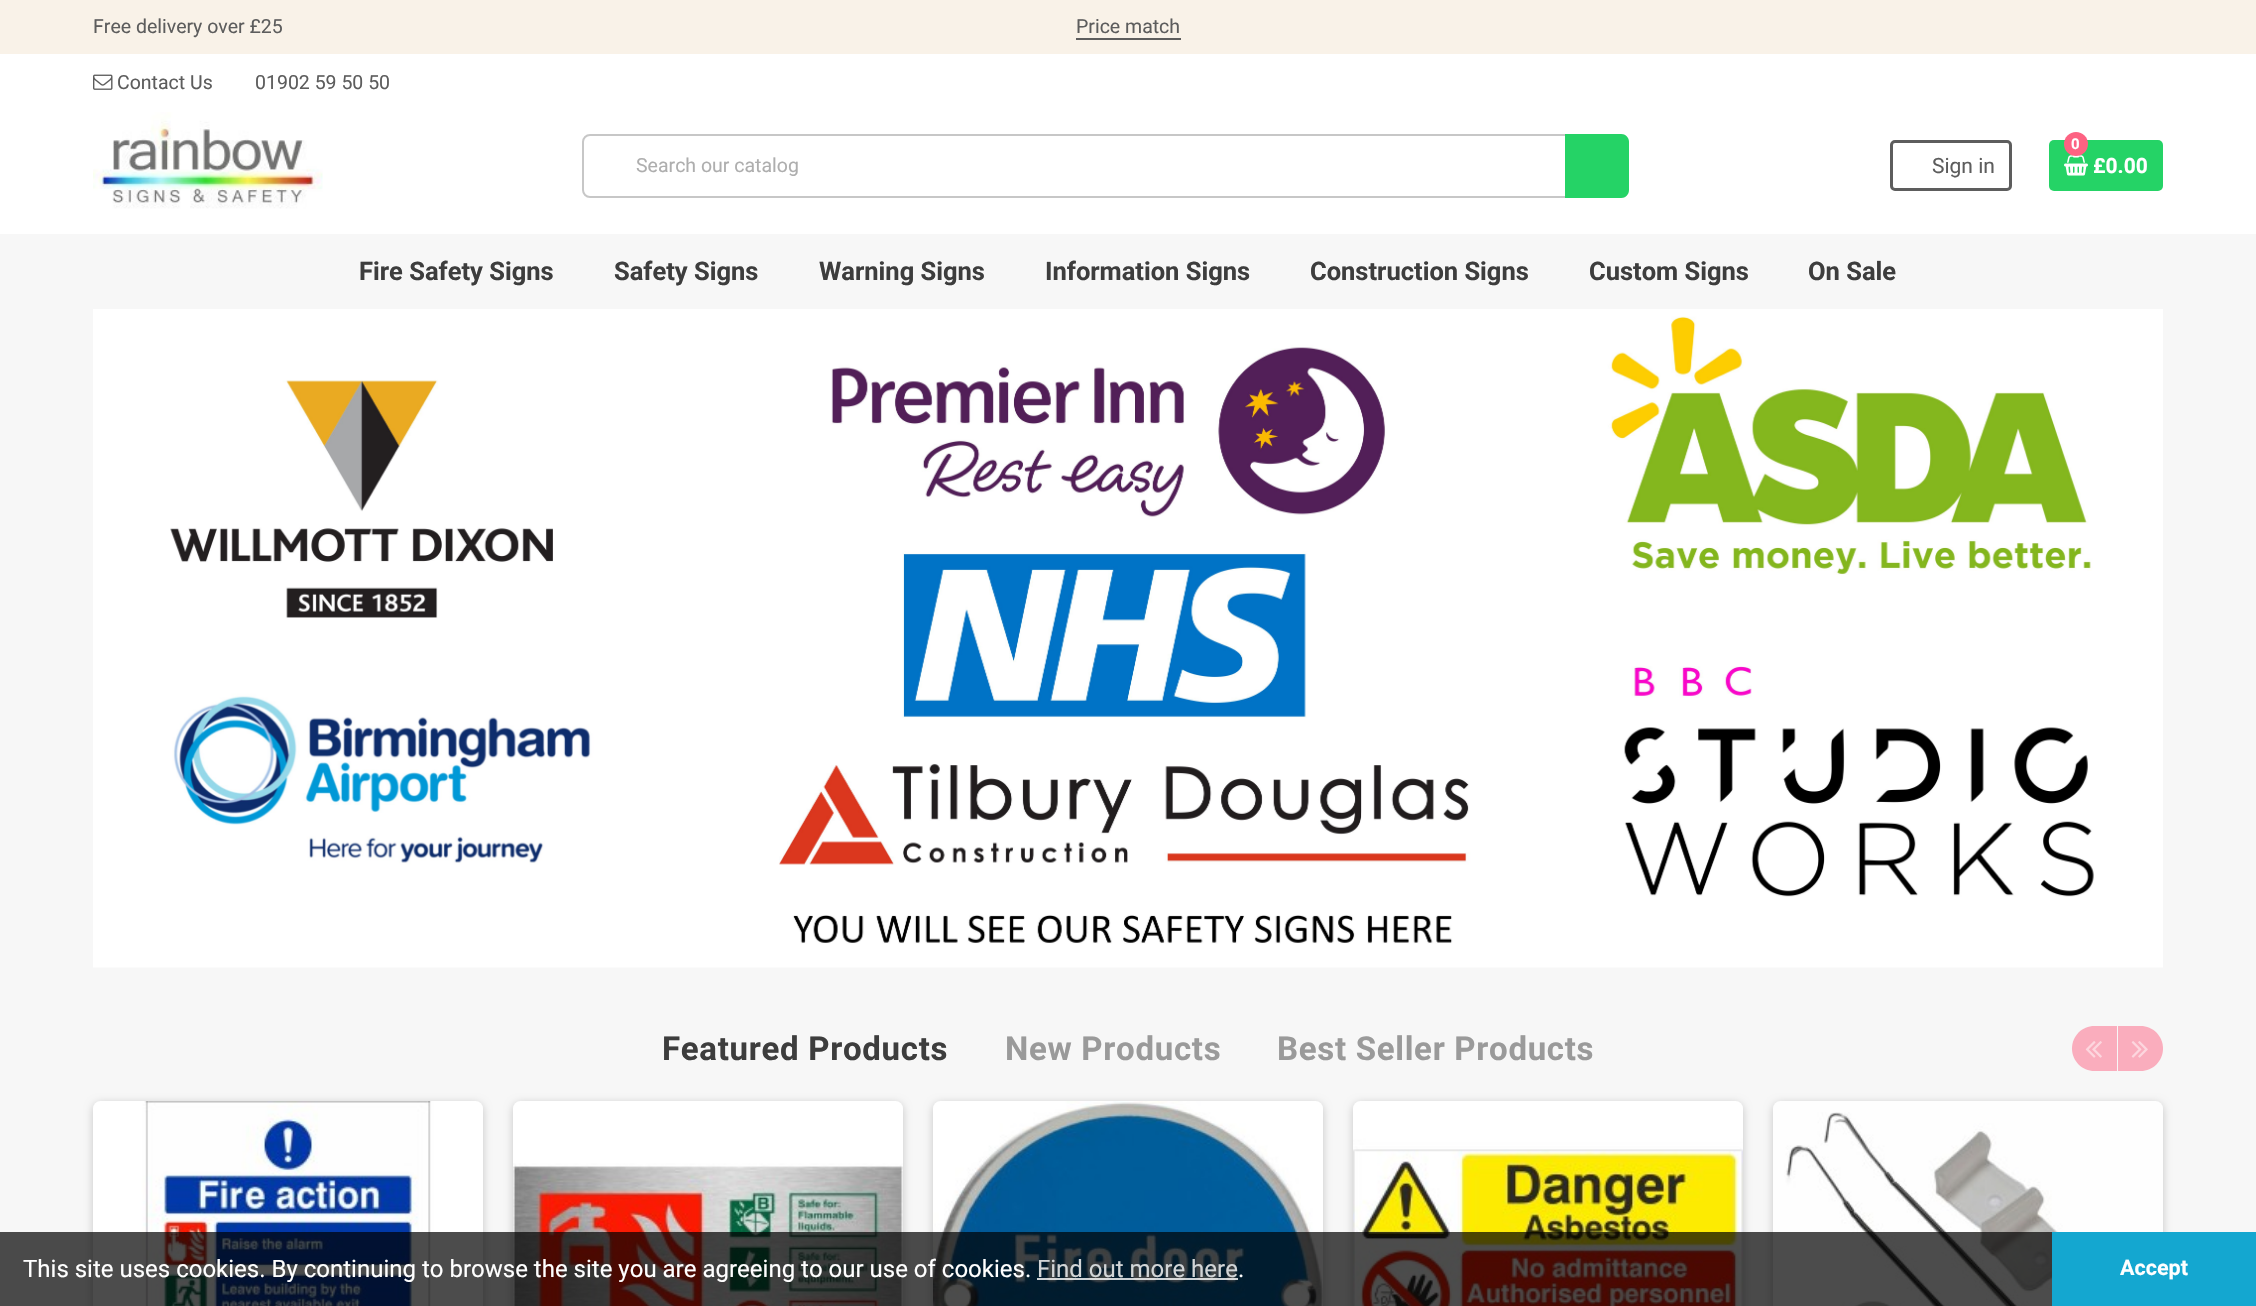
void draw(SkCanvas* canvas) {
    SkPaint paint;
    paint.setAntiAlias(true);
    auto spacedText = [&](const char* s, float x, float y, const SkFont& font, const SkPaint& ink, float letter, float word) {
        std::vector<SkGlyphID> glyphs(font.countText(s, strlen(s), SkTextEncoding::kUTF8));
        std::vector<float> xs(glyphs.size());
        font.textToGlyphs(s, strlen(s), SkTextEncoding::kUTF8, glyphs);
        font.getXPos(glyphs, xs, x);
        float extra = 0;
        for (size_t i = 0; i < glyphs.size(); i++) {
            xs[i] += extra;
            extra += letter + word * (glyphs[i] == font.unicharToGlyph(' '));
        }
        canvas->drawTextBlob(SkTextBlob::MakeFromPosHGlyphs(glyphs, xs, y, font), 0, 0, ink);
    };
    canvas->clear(0xFFFFFFFF);
    paint.setColor(0xFFF9F2E8);
    canvas->drawRect(SkRect::MakeXYWH(0, 0, 2256, 54), paint);
    SkFont font1(fontMgr->matchFamilyStyle("Roboto", SkFontStyle::Normal()), 19.5f);
    font1.setSubpixel(true);
    paint.setColor(0xFF5D5D5D);
    canvas->drawString("Free delivery over £25", 93, 33, font1, paint);
    canvas->drawString("Price match", 1076, 33, font1, paint);
    canvas->drawRect(SkRect::MakeXYWH(1076, 38, 105, 2), paint);
    canvas->drawImageRect(SkImages::DeferredFromEncodedData(SkData::MakeFromFileName("img1.png")), SkRect::MakeXYWH(93, 74, 20, 16), SkSamplingOptions());
    canvas->drawString("Contact Us", 117, 89, font1, paint);
    canvas->drawString("01902 59 50 50", 255, 89, font1, paint);
    canvas->drawImageRect(SkImages::DeferredFromEncodedData(SkData::MakeFromFileName("img2.png")), SkRect::MakeXYWH(93, 112, 230, 97), SkSamplingOptions());
    paint.setStyle(SkPaint::kStroke_Style);
    paint.setStrokeWidth(2);
    paint.setColor(0xFFC7C7C7);
    canvas->drawRoundRect(SkRect::MakeXYWH(583, 135, 1044, 62), 7, 7, paint);
    paint.setStyle(SkPaint::kFill_Style);
    paint.setColor(0xFFAEAEAE);
    canvas->drawString("Search our catalog", 636, 172, font1, paint);
    paint.setColor(0xFF25D366);
    canvas->drawPath(SkPathBuilder().moveTo(1565, 134).lineTo(1621, 134).cubicTo(1625.5f, 134, 1629, 137.5f, 1629, 142).lineTo(1629, 190).cubicTo(1629, 194.5f, 1625.5f, 198, 1621, 198).lineTo(1565, 198).close().detach(), paint);
    paint.setStyle(SkPaint::kStroke_Style);
    paint.setStrokeWidth(3);
    paint.setColor(0xFF5D5D5D);
    canvas->drawRoundRect(SkRect::MakeXYWH(1891.5f, 141.5f, 119, 48), 3.5f, 3.5f, paint);
    SkFont font2(fontMgr->matchFamilyStyle("Roboto", SkFontStyle::Normal()), 21);
    font2.setSubpixel(true);
    paint.setStyle(SkPaint::kFill_Style);
    canvas->drawString("Sign in", 1932, 173, font2, paint);
    paint.setColor(0xFF25D366);
    canvas->drawRoundRect(SkRect::MakeXYWH(2049, 140, 114, 51), 5, 5, paint);
    canvas->drawImageRect(SkImages::DeferredFromEncodedData(SkData::MakeFromFileName("img3.png")), SkRect::MakeXYWH(2064, 155, 24, 21), SkSamplingOptions());
    paint.setColor(0xFFFD6282);
    canvas->drawCircle(2076, 144, 12, paint);
    SkFont font3(fontMgr->matchFamilyStyle("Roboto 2", SkFontStyle::Bold()), 15);
    font3.setSubpixel(true);
    paint.setColor(0xFFFFFFFF);
    canvas->drawString("0", 2071, 149, font3, paint);
    SkFont font4(fontMgr->matchFamilyStyle("Roboto 2", SkFontStyle::Bold()), 21);
    font4.setSubpixel(true);
    canvas->drawString("£0.00", 2093, 173, font4, paint);
    paint.setColor(0xFFF7F7F7);
    canvas->drawRect(SkRect::MakeXYWH(0, 234, 2256, 1072), paint);
    SkFont font5(fontMgr->matchFamilyStyle("Roboto", SkFontStyle::Bold()), 25.5f);
    font5.setSubpixel(true);
    paint.setColor(0xFF3D3D3D);
    canvas->drawString("Fire Safety Signs", 359, 280, font5, paint);
    canvas->drawString("Safety Signs", 614, 280, font5, paint);
    canvas->drawString("Warning Signs", 819, 280, font5, paint);
    canvas->drawString("Information Signs", 1045, 280, font5, paint);
    canvas->drawString("Construction Signs", 1310, 280, font5, paint);
    canvas->drawString("Custom Signs", 1589, 280, font5, paint);
    canvas->drawString("On Sale", 1808, 280, font5, paint);
    canvas->drawImageRect(SkImages::DeferredFromEncodedData(SkData::MakeFromFileName("img4.png")), SkRect::MakeXYWH(93, 309, 2070, 659), SkSamplingOptions());
    paint.setColor(0xFFFAADBD);
    canvas->drawPath(SkPathBuilder().moveTo(2094.5f, 1026).lineTo(2117, 1026).lineTo(2117, 1071).lineTo(2094.5f, 1071).cubicTo(2082, 1071, 2072, 1061, 2072, 1048.5f).cubicTo(2072, 1036, 2082, 1026, 2094.5f, 1026).close().detach(), paint);
    canvas->drawImageRect(SkImages::DeferredFromEncodedData(SkData::MakeFromFileName("img5.png")), SkRect::MakeXYWH(2085, 1041, 17, 17), SkSamplingOptions());
    canvas->drawPath(SkPathBuilder().moveTo(2118, 1026).lineTo(2140.5f, 1026).cubicTo(2153, 1026, 2163, 1036, 2163, 1048.5f).cubicTo(2163, 1061, 2153, 1071, 2140.5f, 1071).lineTo(2118, 1071).close().detach(), paint);
    canvas->drawImageRect(SkImages::DeferredFromEncodedData(SkData::MakeFromFileName("img6.png")), SkRect::MakeXYWH(2131, 1041, 17, 17), SkSamplingOptions());
    paint.setColor(0x33000000);
    paint.setMaskFilter(SkMaskFilter::MakeBlur(kNormal_SkBlurStyle, 4));
    canvas->drawRoundRect(SkRect::MakeXYWH(93, 1103, 390, 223), 8, 8, paint);
    paint.setMaskFilter(nullptr);
    canvas->drawImageRect(SkImages::DeferredFromEncodedData(SkData::MakeFromFileName("img7.png")), SkRect::MakeXYWH(93, 1101, 390, 205), SkSamplingOptions());
    paint.setMaskFilter(SkMaskFilter::MakeBlur(kNormal_SkBlurStyle, 4));
    canvas->drawRoundRect(SkRect::MakeXYWH(513, 1103, 390, 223), 8, 8, paint);
    paint.setMaskFilter(nullptr);
    canvas->drawImageRect(SkImages::DeferredFromEncodedData(SkData::MakeFromFileName("img8.png")), SkRect::MakeXYWH(513, 1101, 390, 205), SkSamplingOptions());
    paint.setMaskFilter(SkMaskFilter::MakeBlur(kNormal_SkBlurStyle, 4));
    canvas->drawRoundRect(SkRect::MakeXYWH(933, 1103, 390, 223), 8, 8, paint);
    paint.setMaskFilter(nullptr);
    canvas->drawImageRect(SkImages::DeferredFromEncodedData(SkData::MakeFromFileName("img9.png")), SkRect::MakeXYWH(933, 1101, 390, 205), SkSamplingOptions());
    paint.setMaskFilter(SkMaskFilter::MakeBlur(kNormal_SkBlurStyle, 4));
    canvas->drawRoundRect(SkRect::MakeXYWH(1353, 1103, 390, 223), 8, 8, paint);
    paint.setMaskFilter(nullptr);
    canvas->drawImageRect(SkImages::DeferredFromEncodedData(SkData::MakeFromFileName("img10.png")), SkRect::MakeXYWH(1353, 1101, 390, 205), SkSamplingOptions());
    paint.setMaskFilter(SkMaskFilter::MakeBlur(kNormal_SkBlurStyle, 4));
    canvas->drawRoundRect(SkRect::MakeXYWH(1773, 1103, 390, 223), 8, 8, paint);
    paint.setMaskFilter(nullptr);
    canvas->drawImageRect(SkImages::DeferredFromEncodedData(SkData::MakeFromFileName("img11.png")), SkRect::MakeXYWH(1773, 1101, 390, 205), SkSamplingOptions());
    SkFont font6(fontMgr->matchFamilyStyle("Roboto", SkFontStyle::Bold()), 33);
    font6.setSubpixel(true);
    paint.setColor(0xFF3D3D3D);
    spacedText("Featured Products", 662, 1060, font6, paint, 0.7f, 0);
    paint.setColor(0xFF9A9A9A);
    spacedText("New Products", 1005, 1060, font6, paint, 0.7f, 0);
    spacedText("Best Seller Products", 1277, 1060, font6, paint, 0.7f, 0);
    paint.setColor(0xB3000000);
    canvas->drawRect(SkRect::MakeXYWH(0, 1232, 2052, 74), paint);
    SkFont font7(fontMgr->matchFamilyStyle("Roboto", SkFontStyle::Normal()), 24);
    font7.setSubpixel(true);
    paint.setColor(0xFFFFFFFF);
    canvas->drawString("This site uses cookies. By continuing to browse the site you are agreeing to our use of cookies.", 23, 1277, font7, paint);
    paint.setColor(0xFFD2D5D7);
    canvas->drawString("Find out more here", 1037, 1277, font7, paint);
    paint.setColor(0xCCFFFFFF);
    canvas->drawRect(SkRect::MakeXYWH(1037, 1278, 201, 2), paint);
    paint.setColor(0xFFFFFFFF);
    canvas->drawString(".", 1238, 1277, font7, paint);
    paint.setColor(0xFF14A7D0);
    canvas->drawRect(SkRect::MakeXYWH(2052, 1232, 204, 74), paint);
    SkFont font8(fontMgr->matchFamilyStyle("Roboto 2", SkFontStyle::Bold()), 21.5f);
    font8.setSubpixel(true);
    paint.setColor(0xFFFFFFFF);
    canvas->drawString("Accept", 2120, 1275, font8, paint);
}
